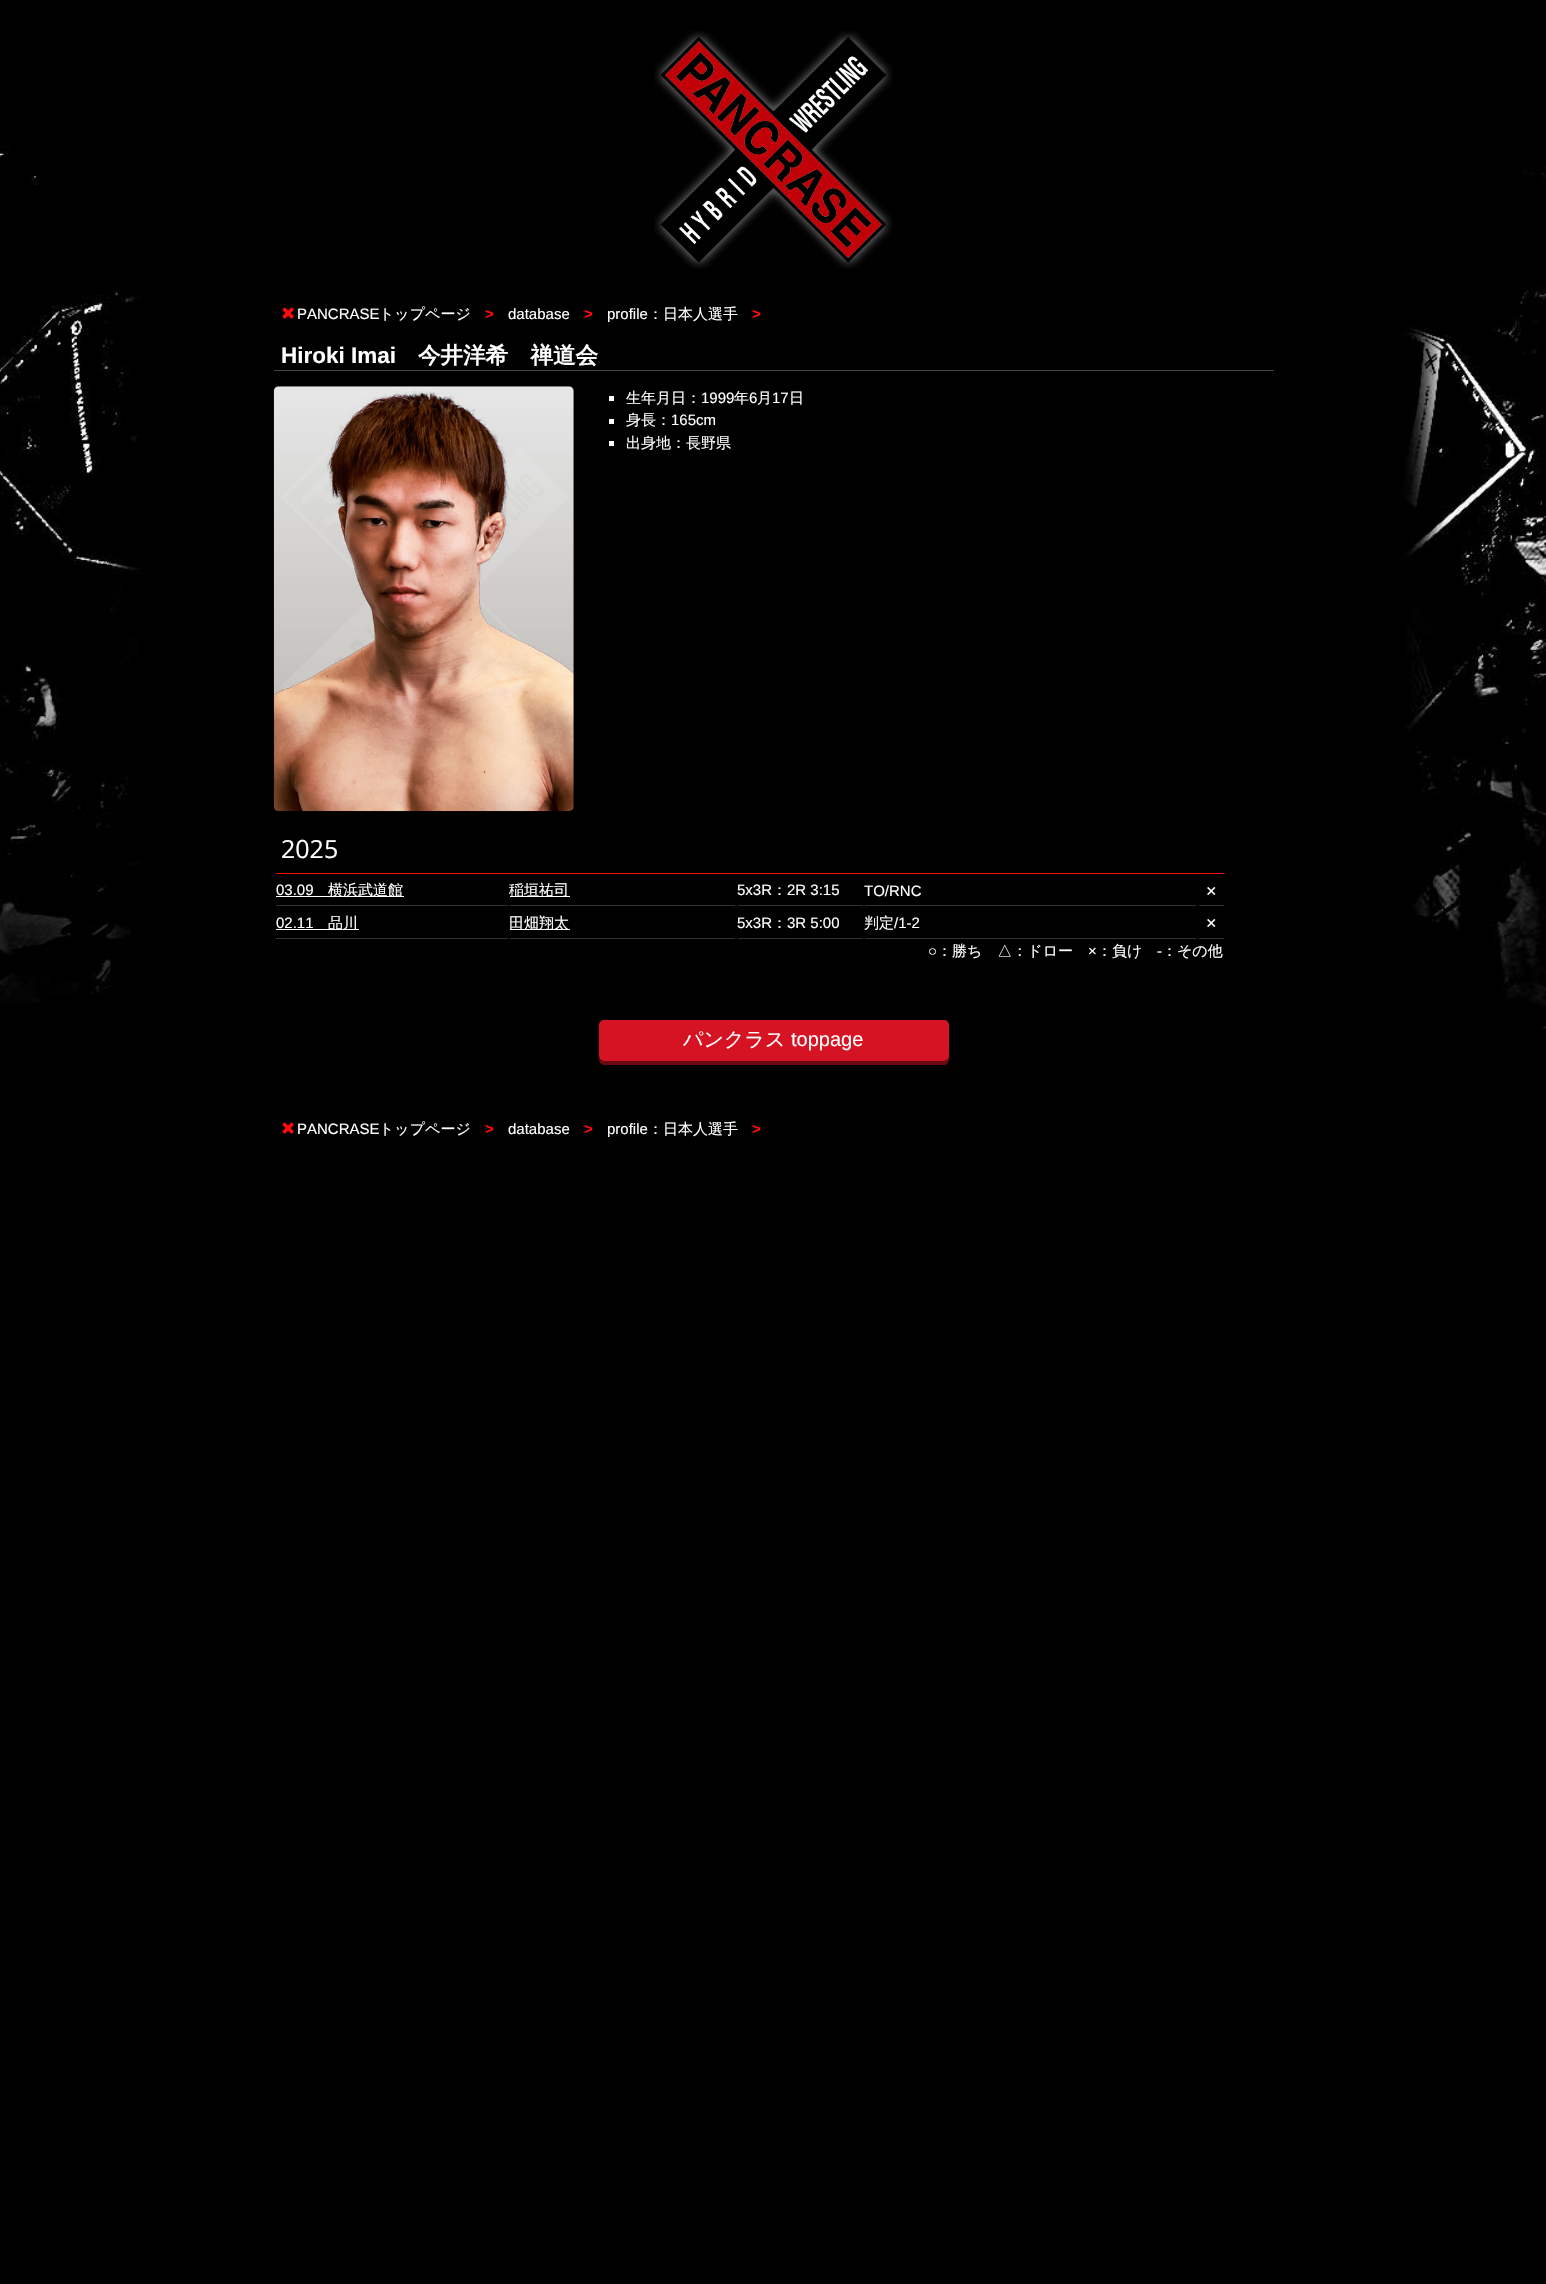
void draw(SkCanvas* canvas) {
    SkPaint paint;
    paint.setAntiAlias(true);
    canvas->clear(0xFF000000);
    canvas->drawImageRect(SkImages::DeferredFromEncodedData(SkData::MakeFromFileName("img1.png")), SkRect::MakeXYWH(0, 145, 1546, 884), SkSamplingOptions());
    canvas->drawImageRect(SkImages::DeferredFromEncodedData(SkData::MakeFromFileName("img2.png")), SkRect::MakeXYWH(654, 31, 239, 238), SkSamplingOptions());
    canvas->drawImageRect(SkImages::DeferredFromEncodedData(SkData::MakeFromFileName("img3.png")), SkRect::MakeXYWH(282, 307, 12, 12), SkSamplingOptions());
    SkFont font1(fontMgr->matchFamilyStyle("Liberation Sans", SkFontStyle::Normal()), 15);
    font1.setSubpixel(true);
    paint.setColor(0xFFFFFFFF);
    canvas->drawString("PANCRASE", 297, 319, font1, paint);
    SkFont font2(fontMgr->matchFamilyStyle("WenQuanYi Zen Hei", SkFontStyle(500, SkFontStyle::kNormal_Width, SkFontStyle::kUpright_Slant)), 15);
    font2.setSubpixel(true);
    canvas->drawString("トップページ", 379, 319, font2, paint);
    SkFont font3(fontMgr->matchFamilyStyle("Liberation Sans", SkFontStyle::Bold()), 15);
    font3.setSubpixel(true);
    paint.setColor(0xFFFF0C09);
    canvas->drawString(">", 485, 319, font3, paint);
    paint.setColor(0xFFFFFFFF);
    canvas->drawString("database", 508, 319, font1, paint);
    paint.setColor(0xFFFF0C09);
    canvas->drawString(">", 584, 319, font3, paint);
    paint.setColor(0xFFFFFFFF);
    canvas->drawString("profile", 607, 319, font1, paint);
    canvas->drawString("：日本人選手", 648, 319, font2, paint);
    paint.setColor(0xFFFF0C09);
    canvas->drawString(">", 752, 319, font3, paint);
    paint.setColor(0xFF444444);
    canvas->drawRect(SkRect::MakeXYWH(274, 370, 1000, 1), paint);
    SkFont font4(fontMgr->matchFamilyStyle("Liberation Sans", SkFontStyle::Bold()), 22.5f);
    font4.setSubpixel(true);
    paint.setColor(0xFFFFFFFF);
    canvas->drawString("Hiroki Imai", 281, 363, font4, paint);
    SkFont font5(fontMgr->matchFamilyStyle("WenQuanYi Zen Hei", SkFontStyle::Bold()), 22.5f);
    font5.setSubpixel(true);
    canvas->drawString("今井洋希　禅道会", 418, 363, font5, paint);
    canvas->drawImageRect(SkImages::DeferredFromEncodedData(SkData::MakeFromFileName("img4.png")), SkRect::MakeXYWH(273, 386, 301, 426), SkSamplingOptions());
    canvas->drawRect(SkRect::MakeXYWH(609, 396, 5, 5), paint);
    canvas->drawString("生年月日：", 626, 403, font2, paint);
    canvas->drawString("1999", 701, 403, font1, paint);
    canvas->drawString("年", 734, 403, font2, paint);
    canvas->drawString("6", 749, 403, font1, paint);
    canvas->drawString("月", 757, 403, font2, paint);
    canvas->drawString("17", 772, 403, font1, paint);
    canvas->drawString("日", 789, 403, font2, paint);
    canvas->drawRect(SkRect::MakeXYWH(609, 419, 5, 5), paint);
    canvas->drawString("身長：", 626, 425, font2, paint);
    canvas->drawString("165cm", 671, 425, font1, paint);
    canvas->drawRect(SkRect::MakeXYWH(609, 441, 5, 5), paint);
    canvas->drawString("出身地：長野県", 626, 448, font2, paint);
    paint.setColor(0xFFFF0C09);
    canvas->drawRect(SkRect::MakeXYWH(276, 873, 948, 1), paint);
    SkFont font6(fontMgr->matchFamilyStyle("Open Sans", SkFontStyle::Normal()), 25);
    font6.setSubpixel(true);
    paint.setColor(0xFFFFFFFF);
    canvas->drawString("2025", 281, 858, font6, paint);
    paint.setColor(0xFF333333);
    canvas->drawRect(SkRect::MakeXYWH(276, 905, 232, 1), paint);
    paint.setColor(0xFFFFFFFF);
    canvas->drawString("03.09", 276, 895, font1, paint);
    canvas->drawRect(SkRect::MakeXYWH(276, 896, 128, 1), paint);
    canvas->drawString("横浜武道館", 328, 895, font2, paint);
    paint.setColor(0xFF333333);
    canvas->drawRect(SkRect::MakeXYWH(510, 905, 225, 1), paint);
    paint.setColor(0xFFFFFFFF);
    canvas->drawRect(SkRect::MakeXYWH(510, 896, 60, 1), paint);
    canvas->drawString("稲垣祐司", 509, 895, font2, paint);
    paint.setColor(0xFF333333);
    canvas->drawRect(SkRect::MakeXYWH(738, 905, 125, 1), paint);
    paint.setColor(0xFFFFFFFF);
    canvas->drawString("5x3R", 737, 895, font1, paint);
    canvas->drawString("：", 772, 895, font2, paint);
    canvas->drawString("2R 3:15", 787, 895, font1, paint);
    paint.setColor(0xFF333333);
    canvas->drawRect(SkRect::MakeXYWH(865, 905, 331, 1), paint);
    paint.setColor(0xFFFFFFFF);
    canvas->drawString("TO/RNC", 864, 896, font1, paint);
    paint.setColor(0xFF333333);
    canvas->drawRect(SkRect::MakeXYWH(1199, 905, 25, 1), paint);
    SkFont font7(fontMgr->matchFamilyStyle("Liberation Sans", SkFontStyle::Normal()), 18);
    font7.setSubpixel(true);
    paint.setColor(0xFFFFFFFF);
    canvas->drawString("×", 1206, 897, font7, paint);
    paint.setColor(0xFF333333);
    canvas->drawRect(SkRect::MakeXYWH(276, 938, 232, 1), paint);
    paint.setColor(0xFFFFFFFF);
    canvas->drawString("02.11", 276, 928, font1, paint);
    canvas->drawRect(SkRect::MakeXYWH(276, 929, 83, 1), paint);
    canvas->drawString("品川", 328, 928, font2, paint);
    paint.setColor(0xFF333333);
    canvas->drawRect(SkRect::MakeXYWH(510, 938, 225, 1), paint);
    paint.setColor(0xFFFFFFFF);
    canvas->drawRect(SkRect::MakeXYWH(510, 929, 60, 1), paint);
    canvas->drawString("田畑翔太", 509, 928, font2, paint);
    paint.setColor(0xFF333333);
    canvas->drawRect(SkRect::MakeXYWH(738, 938, 125, 1), paint);
    paint.setColor(0xFFFFFFFF);
    canvas->drawString("5x3R", 737, 928, font1, paint);
    canvas->drawString("：", 772, 928, font2, paint);
    canvas->drawString("3R 5:00", 787, 928, font1, paint);
    paint.setColor(0xFF333333);
    canvas->drawRect(SkRect::MakeXYWH(865, 938, 331, 1), paint);
    paint.setColor(0xFFFFFFFF);
    canvas->drawString("判定", 864, 928, font2, paint);
    canvas->drawString("/1-2", 894, 928, font1, paint);
    paint.setColor(0xFF333333);
    canvas->drawRect(SkRect::MakeXYWH(1199, 938, 25, 1), paint);
    paint.setColor(0xFFFFFFFF);
    canvas->drawString("×", 1206, 929, font7, paint);
    canvas->drawString("○", 928, 956, font1, paint);
    canvas->drawString("：勝ち　△：ドロー", 937, 956, font2, paint);
    canvas->drawString("×", 1088, 956, font1, paint);
    canvas->drawString("：負け", 1097, 956, font2, paint);
    canvas->drawString("-", 1157, 956, font1, paint);
    canvas->drawString("：その他", 1162, 956, font2, paint);
    paint.setColor(0xFF6A0911);
    canvas->drawPath(SkPathBuilder().moveTo(599, 1058).cubicTo(599, 1061, 600, 1065, 604, 1065).lineTo(944, 1065).cubicTo(951, 1065, 949, 1054, 949, 1050).lineTo(949, 1027).lineTo(949, 1056).cubicTo(949, 1059, 947, 1061, 944, 1061).lineTo(604, 1061).cubicTo(602, 1061, 600, 1060, 599, 1058).close().detach(), paint);
    paint.setColor(0xFFD51323);
    canvas->drawRoundRect(SkRect::MakeXYWH(599, 1020, 350, 41), 5, 5, paint);
    SkFont font8(fontMgr->matchFamilyStyle("WenQuanYi Zen Hei", SkFontStyle(500, SkFontStyle::kNormal_Width, SkFontStyle::kUpright_Slant)), 20);
    font8.setSubpixel(true);
    paint.setColor(0xFFFFFFFF);
    canvas->drawString("パンクラス", 683, 1046, font8, paint);
    SkFont font9(fontMgr->matchFamilyStyle("Liberation Sans", SkFontStyle::Normal()), 20);
    font9.setSubpixel(true);
    canvas->drawString("toppage", 791, 1046, font9, paint);
    canvas->drawImageRect(SkImages::DeferredFromEncodedData(SkData::MakeFromFileName("img3.png")), SkRect::MakeXYWH(282, 1122, 12, 12), SkSamplingOptions());
    canvas->drawString("PANCRASE", 297, 1134, font1, paint);
    canvas->drawString("トップページ", 379, 1134, font2, paint);
    paint.setColor(0xFFFF0C09);
    canvas->drawString(">", 485, 1134, font3, paint);
    paint.setColor(0xFFFFFFFF);
    canvas->drawString("database", 508, 1134, font1, paint);
    paint.setColor(0xFFFF0C09);
    canvas->drawString(">", 584, 1134, font3, paint);
    paint.setColor(0xFFFFFFFF);
    canvas->drawString("profile", 607, 1134, font1, paint);
    canvas->drawString("：日本人選手", 648, 1134, font2, paint);
    paint.setColor(0xFFFF0C09);
    canvas->drawString(">", 752, 1134, font3, paint);
}
